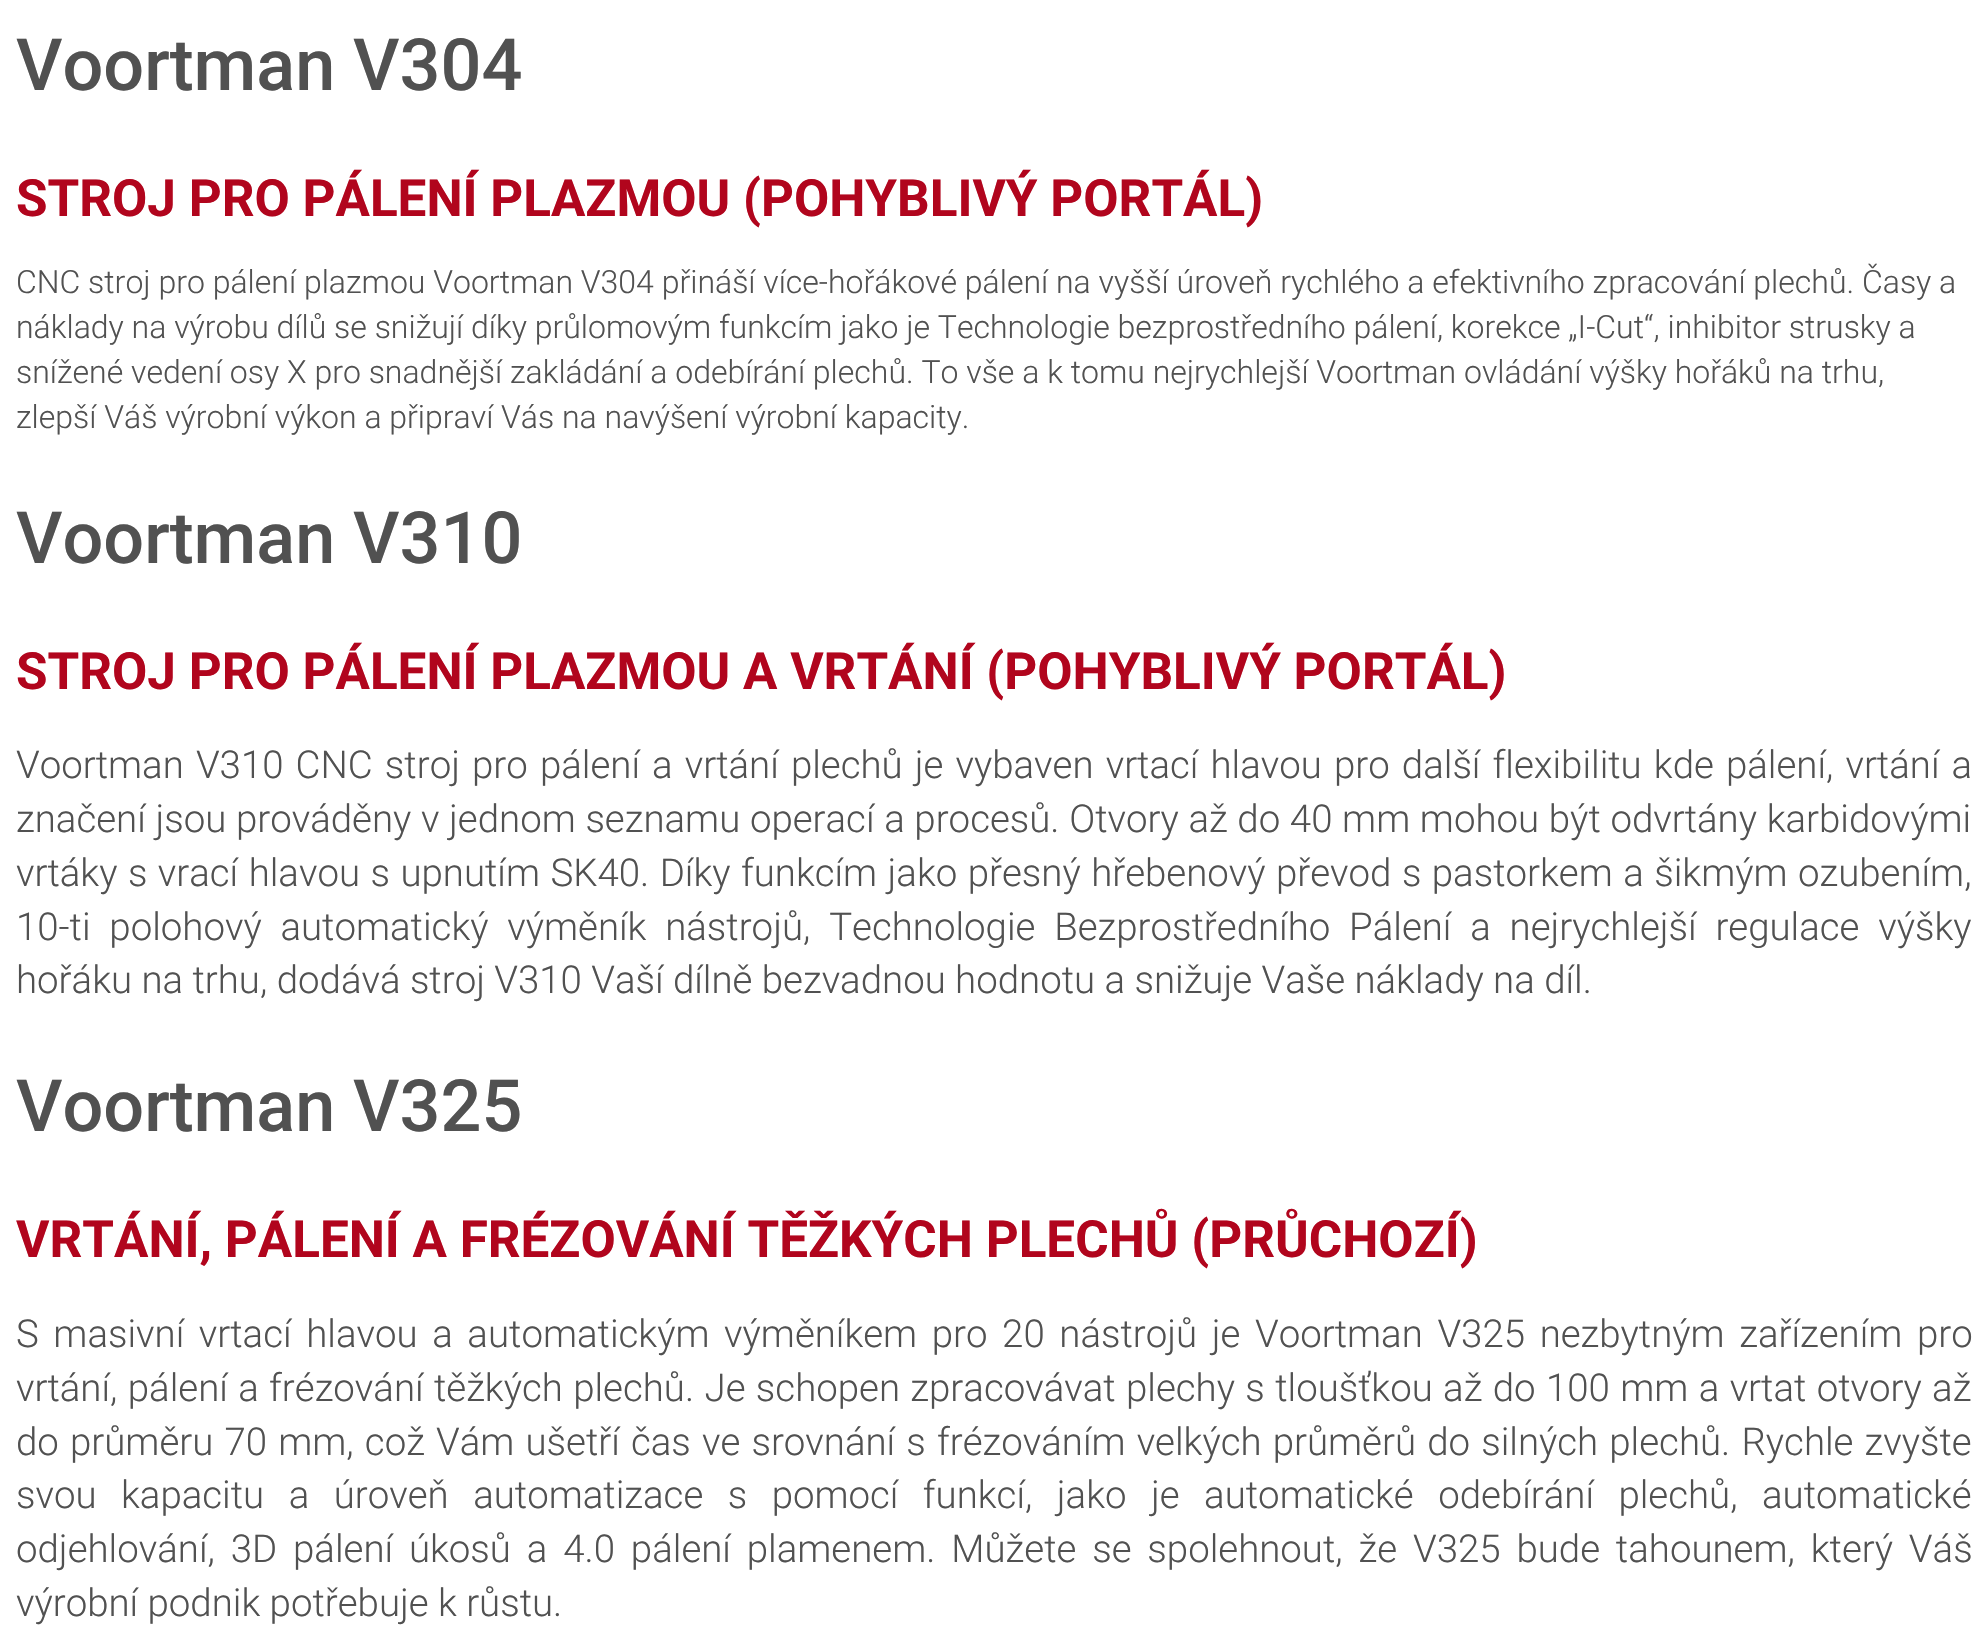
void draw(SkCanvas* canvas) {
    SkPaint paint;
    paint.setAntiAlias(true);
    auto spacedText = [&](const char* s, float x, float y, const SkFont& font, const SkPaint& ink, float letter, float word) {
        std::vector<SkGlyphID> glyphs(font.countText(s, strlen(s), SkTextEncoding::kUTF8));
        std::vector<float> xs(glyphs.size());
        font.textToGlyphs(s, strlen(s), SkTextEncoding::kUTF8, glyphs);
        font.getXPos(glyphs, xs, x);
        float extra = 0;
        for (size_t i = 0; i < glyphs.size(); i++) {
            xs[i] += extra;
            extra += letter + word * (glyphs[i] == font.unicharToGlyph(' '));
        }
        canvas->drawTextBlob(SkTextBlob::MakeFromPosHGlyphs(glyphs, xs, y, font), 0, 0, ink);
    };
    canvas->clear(0xFFFFFFFF);
    SkFont font1(fontMgr->matchFamilyStyle("Roboto", SkFontStyle(500, SkFontStyle::kNormal_Width, SkFontStyle::kUpright_Slant)), 72);
    font1.setSubpixel(true);
    paint.setColor(0xFF515151);
    canvas->drawString("Voortman V304", 16, 90, font1, paint);
    SkFont font2(fontMgr->matchFamilyStyle("Roboto", SkFontStyle::Bold()), 51.2f);
    font2.setSubpixel(true);
    paint.setColor(0xFFB1051D);
    canvas->drawString("STROJ PRO PÁLENÍ PLAZMOU (POHYBLIVÝ PORTÁL)", 16, 216, font2, paint);
    SkFont font3(fontMgr->matchFamilyStyle("Roboto", SkFontStyle(300, SkFontStyle::kNormal_Width, SkFontStyle::kUpright_Slant)), 32);
    font3.setSubpixel(true);
    paint.setColor(0xFF515151);
    canvas->drawString("CNC stroj pro pálení plazmou Voortman V304 přináší více-hořákové pálení na vyšší úroveň rychlého a efektivního zpracování plechů. Časy a", 16, 293, font3, paint);
    canvas->drawString("náklady na výrobu dílů se snižují díky průlomovým funkcím jako je Technologie bezprostředního pálení, korekce „I-Cut“, inhibitor strusky a", 16, 338, font3, paint);
    canvas->drawString("snížené vedení osy X pro snadnější zakládání a odebírání plechů. To vše a k tomu nejrychlejší Voortman ovládání výšky hořáků na trhu,", 16, 383, font3, paint);
    canvas->drawString("zlepší Váš výrobní výkon a připraví Vás na navýšení výrobní kapacity.", 16, 428, font3, paint);
    canvas->drawString("Voortman V310", 16, 563, font1, paint);
    paint.setColor(0xFFB1051D);
    canvas->drawString("STROJ PRO PÁLENÍ PLAZMOU A VRTÁNÍ (POHYBLIVÝ PORTÁL)", 16, 689, font2, paint);
    SkFont font4(fontMgr->matchFamilyStyle("Roboto", SkFontStyle(300, SkFontStyle::kNormal_Width, SkFontStyle::kUpright_Slant)), 38.4f);
    font4.setSubpixel(true);
    paint.setColor(0xFF515151);
    spacedText("Voortman V310 CNC stroj pro pálení a vrtání plechů je vybaven vrtací hlavou pro další flexibilitu kde pálení, vrtání a", 16, 778, font4, paint, 0, 2.75f);
    spacedText("značení jsou prováděny v jednom seznamu operací a procesů. Otvory až do 40 mm mohou být odvrtány karbidovými", 16, 832, font4, paint, 0, 0.3f);
    spacedText("vrtáky s vrací hlavou s upnutím SK40. Díky funkcím jako přesný hřebenový převod s pastorkem a šikmým ozubením,", 16, 886, font4, paint, 0, 1.1f);
    spacedText("10-ti polohový automatický výměník nástrojů, Technologie Bezprostředního Pálení a nejrychlejší regulace výšky", 16, 940, font4, paint, 0, 9.4f);
    canvas->drawString("hořáku na trhu, dodává stroj V310 Vaší dílně bezvadnou hodnotu a snižuje Vaše náklady na díl.", 16, 993, font4, paint);
    canvas->drawString("Voortman V325", 16, 1131, font1, paint);
    paint.setColor(0xFFB1051D);
    canvas->drawString("VRTÁNÍ, PÁLENÍ A FRÉZOVÁNÍ TĚŽKÝCH PLECHŮ (PRŮCHOZÍ)", 16, 1257, font2, paint);
    paint.setColor(0xFF515151);
    spacedText("S masivní vrtací hlavou a automatickým výměníkem pro 20 nástrojů je Voortman V325 nezbytným zařízením pro", 16, 1347, font4, paint, 0, 5.25f);
    spacedText("vrtání, pálení a frézování těžkých plechů. Je schopen zpracovávat plechy s tloušťkou až do 100 mm a vrtat otvory až", 16, 1401, font4, paint, 0, 1);
    spacedText("do průměru 70 mm, což Vám ušetří čas ve srovnání s frézováním velkých průměrů do silných plechů. Rychle zvyšte", 16, 1455, font4, paint, 0, 1.8f);
    spacedText("svou kapacitu a úroveň automatizace s pomocí funkcí, jako je automatické odebírání plechů, automatické", 16, 1508, font4, paint, 0, 15.1f);
    spacedText("odjehlování, 3D pálení úkosů a 4.0 pálení plamenem. Můžete se spolehnout, že V325 bude tahounem, který Váš", 16, 1562, font4, paint, 0, 6.5f);
    canvas->drawString("výrobní podnik potřebuje k růstu.", 16, 1616, font4, paint);
}
